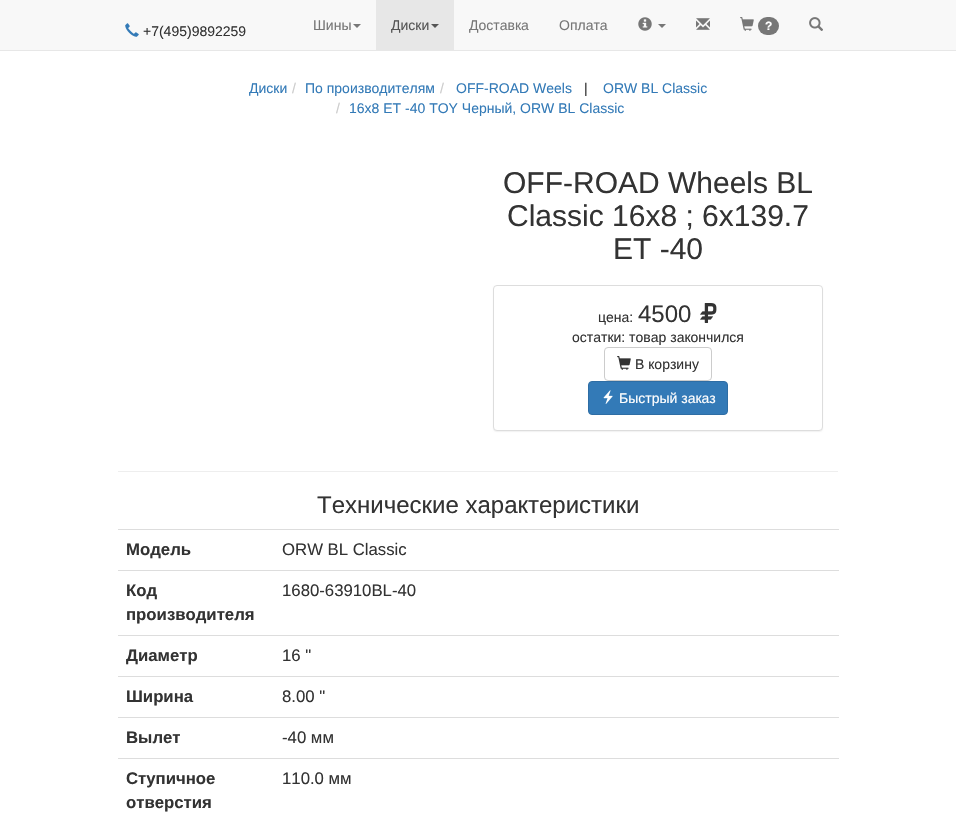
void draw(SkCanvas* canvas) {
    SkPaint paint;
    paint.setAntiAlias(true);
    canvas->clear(0xFFFFFFFF);
    paint.setColor(0xFFF8F8F8);
    canvas->drawRect(SkRect::MakeXYWH(0, 0, 956, 50), paint);
    paint.setColor(0xFFE7E7E7);
    canvas->drawRect(SkRect::MakeXYWH(0, 50, 956, 1), paint);
    canvas->drawImageRect(SkImages::DeferredFromEncodedData(SkData::MakeFromFileName("img1.png")), SkRect::MakeXYWH(125, 23, 14, 14), SkSamplingOptions());
    SkFont font1(fontMgr->matchFamilyStyle("Liberation Sans", SkFontStyle::Normal()), 14);
    font1.setSubpixel(true);
    paint.setColor(0xFF333333);
    canvas->drawString("+7(495)9892259", 143, 36, font1, paint);
    paint.setColor(0xFF777777);
    canvas->drawString("Шины", 313, 30, font1, paint);
    canvas->drawPath(SkPathBuilder().moveTo(353, 24).lineTo(361, 24).lineTo(357, 28).close().detach(), paint);
    paint.setColor(0xFFE7E7E7);
    canvas->drawRect(SkRect::MakeXYWH(376, 0, 78, 50), paint);
    paint.setColor(0xFF555555);
    canvas->drawString("Диски", 391, 30, font1, paint);
    canvas->drawPath(SkPathBuilder().moveTo(431, 24).lineTo(439, 24).lineTo(435, 28).close().detach(), paint);
    paint.setColor(0xFF777777);
    canvas->drawString("Доставка", 469, 30, font1, paint);
    canvas->drawString("Оплата", 559, 30, font1, paint);
    canvas->drawImageRect(SkImages::DeferredFromEncodedData(SkData::MakeFromFileName("img2.png")), SkRect::MakeXYWH(638, 17, 14, 14), SkSamplingOptions());
    canvas->drawPath(SkPathBuilder().moveTo(658, 24).lineTo(666, 24).lineTo(662, 28).close().detach(), paint);
    canvas->drawImageRect(SkImages::DeferredFromEncodedData(SkData::MakeFromFileName("img3.png")), SkRect::MakeXYWH(696, 18, 14, 12), SkSamplingOptions());
    canvas->drawImageRect(SkImages::DeferredFromEncodedData(SkData::MakeFromFileName("img4.png")), SkRect::MakeXYWH(740, 17, 14, 14), SkSamplingOptions());
    canvas->drawRoundRect(SkRect::MakeXYWH(758, 17, 21, 18), 9, 9, paint);
    SkFont font2(fontMgr->matchFamilyStyle("Liberation Sans", SkFontStyle::Bold()), 12);
    font2.setSubpixel(true);
    paint.setColor(0xFFFFFFFF);
    canvas->drawString("?", 765, 30, font2, paint);
    canvas->drawImageRect(SkImages::DeferredFromEncodedData(SkData::MakeFromFileName("img5.png")), SkRect::MakeXYWH(809, 17, 14, 14), SkSamplingOptions());
    paint.setColor(0xFF337AB7);
    canvas->drawString("Диски", 249, 93, font1, paint);
    paint.setColor(0xFFCCCCCC);
    canvas->drawString("/", 292, 93, font1, paint);
    paint.setColor(0xFF337AB7);
    canvas->drawString("По производителям", 305, 93, font1, paint);
    paint.setColor(0xFFCCCCCC);
    canvas->drawString("/", 440, 93, font1, paint);
    paint.setColor(0xFF337AB7);
    canvas->drawString("OFF-ROAD Weels", 456, 93, font1, paint);
    paint.setColor(0xFF333333);
    canvas->drawString("|", 584, 93, font1, paint);
    paint.setColor(0xFF337AB7);
    canvas->drawString("ORW BL Classic", 603, 93, font1, paint);
    paint.setColor(0xFFCCCCCC);
    canvas->drawString("/", 336, 113, font1, paint);
    paint.setColor(0xFF337AB7);
    canvas->drawString("16x8 ET -40 TOY Черный, ORW BL Classic", 349, 113, font1, paint);
    SkFont font3(fontMgr->matchFamilyStyle("Liberation Sans", SkFontStyle::Normal()), 30);
    font3.setSubpixel(true);
    paint.setColor(0xFF333333);
    canvas->drawString("OFF-ROAD Wheels BL", 503, 193, font3, paint);
    canvas->drawString("Classic 16x8 ; 6x139.7", 507, 226, font3, paint);
    canvas->drawString("ET -40", 613, 259, font3, paint);
    paint.setColor(0x0D000000);
    paint.setMaskFilter(SkMaskFilter::MakeBlur(kNormal_SkBlurStyle, 0.5f));
    canvas->drawRoundRect(SkRect::MakeXYWH(493, 286, 330, 146), 4, 4, paint);
    paint.setMaskFilter(nullptr);
    paint.setColor(0xFFFFFFFF);
    canvas->drawRoundRect(SkRect::MakeXYWH(493.5f, 285.5f, 329, 145), 3.5f, 3.5f, paint);
    paint.setStyle(SkPaint::kStroke_Style);
    paint.setStrokeWidth(1);
    paint.setColor(0xFFDDDDDD);
    canvas->drawRoundRect(SkRect::MakeXYWH(493.5f, 285.5f, 329, 145), 3.5f, 3.5f, paint);
    paint.setStyle(SkPaint::kFill_Style);
    paint.setColor(0xFF333333);
    canvas->drawString("цена:", 598, 322, font1, paint);
    SkFont font4(fontMgr->matchFamilyStyle("Liberation Sans", SkFontStyle::Normal()), 24);
    font4.setSubpixel(true);
    canvas->drawString("4500", 638, 322, font4, paint);
    canvas->drawImageRect(SkImages::DeferredFromEncodedData(SkData::MakeFromFileName("img6.png")), SkRect::MakeXYWH(700, 303, 17, 20), SkSamplingOptions());
    canvas->drawString("остатки: товар закончился", 572, 342, font1, paint);
    paint.setStyle(SkPaint::kStroke_Style);
    paint.setColor(0xFFCCCCCC);
    canvas->drawRoundRect(SkRect::MakeXYWH(604.5f, 347.5f, 107, 33), 3.5f, 3.5f, paint);
    canvas->drawImageRect(SkImages::DeferredFromEncodedData(SkData::MakeFromFileName("img7.png")), SkRect::MakeXYWH(617, 356, 14, 14), SkSamplingOptions());
    paint.setStyle(SkPaint::kFill_Style);
    paint.setColor(0xFF333333);
    canvas->drawString("В корзину", 635, 369, font1, paint);
    paint.setColor(0xFF337AB7);
    canvas->drawRoundRect(SkRect::MakeXYWH(588.5f, 381.5f, 139, 33), 3.5f, 3.5f, paint);
    paint.setStyle(SkPaint::kStroke_Style);
    paint.setColor(0xFF2E6DA4);
    canvas->drawRoundRect(SkRect::MakeXYWH(588.5f, 381.5f, 139, 33), 3.5f, 3.5f, paint);
    canvas->drawImageRect(SkImages::DeferredFromEncodedData(SkData::MakeFromFileName("img8.png")), SkRect::MakeXYWH(603, 390, 10, 14), SkSamplingOptions());
    paint.setStyle(SkPaint::kFill_Style);
    paint.setColor(0xFFFFFFFF);
    canvas->drawString("Быстрый заказ", 619, 403, font1, paint);
    paint.setColor(0xFFEEEEEE);
    canvas->drawRect(SkRect::MakeXYWH(118, 471, 720, 1), paint);
    paint.setColor(0xFF333333);
    canvas->drawString("Технические характеристики", 317, 513, font4, paint);
    SkFont font5(fontMgr->matchFamilyStyle("Liberation Sans", SkFontStyle::Bold()), 16.75f);
    font5.setSubpixel(true);
    canvas->drawString("Модель", 126, 555, font5, paint);
    paint.setColor(0xFFDDDDDD);
    canvas->drawRect(SkRect::MakeXYWH(118, 529, 721, 1), paint);
    SkFont font6(fontMgr->matchFamilyStyle("Liberation Sans", SkFontStyle::Normal()), 16.75f);
    font6.setSubpixel(true);
    paint.setColor(0xFF333333);
    canvas->drawString("ORW BL Classic", 282, 555, font6, paint);
    canvas->drawString("Код", 126, 596, font5, paint);
    canvas->drawString("производителя", 126, 620, font5, paint);
    paint.setColor(0xFFDDDDDD);
    canvas->drawRect(SkRect::MakeXYWH(118, 570, 721, 1), paint);
    paint.setColor(0xFF333333);
    canvas->drawString("1680-63910BL-40", 282, 596, font6, paint);
    canvas->drawString("Диаметр", 126, 661, font5, paint);
    paint.setColor(0xFFDDDDDD);
    canvas->drawRect(SkRect::MakeXYWH(118, 635, 721, 1), paint);
    paint.setColor(0xFF333333);
    canvas->drawString("16 \"", 282, 661, font6, paint);
    canvas->drawString("Ширина", 126, 702, font5, paint);
    paint.setColor(0xFFDDDDDD);
    canvas->drawRect(SkRect::MakeXYWH(118, 676, 721, 1), paint);
    paint.setColor(0xFF333333);
    canvas->drawString("8.00 \"", 282, 702, font6, paint);
    canvas->drawString("Вылет", 126, 743, font5, paint);
    paint.setColor(0xFFDDDDDD);
    canvas->drawRect(SkRect::MakeXYWH(118, 717, 721, 1), paint);
    paint.setColor(0xFF333333);
    canvas->drawString("-40 мм", 282, 743, font6, paint);
    canvas->drawString("Ступичное", 126, 784, font5, paint);
    canvas->drawString("отверстия", 126, 808, font5, paint);
    paint.setColor(0xFFDDDDDD);
    canvas->drawRect(SkRect::MakeXYWH(118, 758, 721, 1), paint);
    paint.setColor(0xFF333333);
    canvas->drawString("110.0 мм", 282, 784, font6, paint);
}
